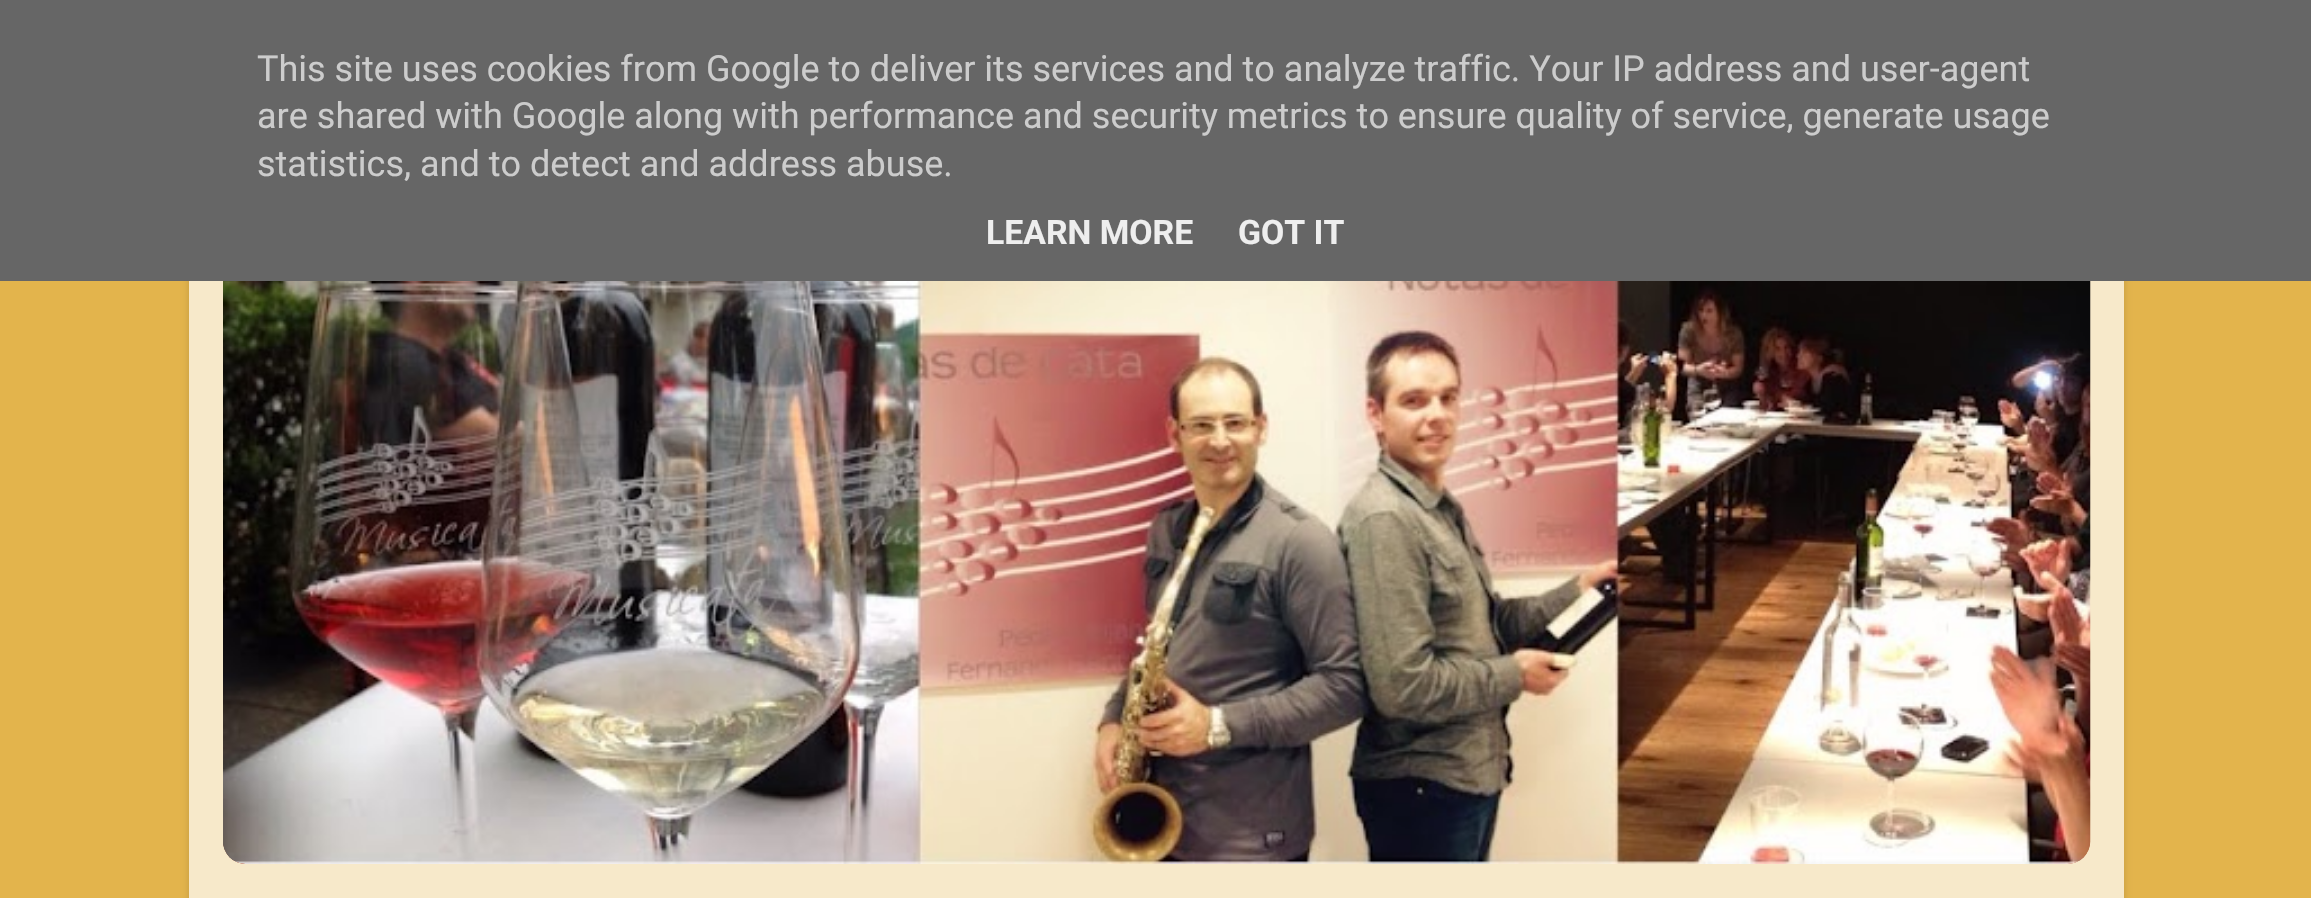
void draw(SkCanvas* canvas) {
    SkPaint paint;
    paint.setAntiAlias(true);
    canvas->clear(0xFFE3B44C);
    canvas->save();
    canvas->clipPath(SkPathBuilder(SkPathFillType::kEvenOdd).moveTo(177, 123).lineTo(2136, 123).lineTo(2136, 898).lineTo(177, 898).close().moveTo(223, 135).lineTo(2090, 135).cubicTo(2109, 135, 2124, 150, 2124, 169).lineTo(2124, 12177).cubicTo(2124, 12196, 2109, 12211, 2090, 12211).lineTo(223, 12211).cubicTo(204, 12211, 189, 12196, 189, 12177).lineTo(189, 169).cubicTo(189, 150, 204, 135, 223, 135).close().detach(), true);
    paint.setColor(0x26000000);
    paint.setMaskFilter(SkMaskFilter::MakeBlur(kNormal_SkBlurStyle, 3.5f));
    canvas->drawRoundRect(SkRect::MakeXYWH(189, 135, 1935, 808), 34, 34, paint);
    paint.setMaskFilter(nullptr);
    canvas->restore();
    canvas->drawImageRect(SkImages::DeferredFromEncodedData(SkData::MakeFromFileName("img1.png")), SkRect::MakeXYWH(189, 281, 1935, 617), SkSamplingOptions());
    paint.setColor(0xFF992211);
    canvas->drawRoundRect(SkRect::MakeXYWH(223, 169, 1867, 695), 23, 23, paint);
    paint.setColor(0xFF666666);
    canvas->drawRect(SkRect::MakeXYWH(0, 0, 2311, 281), paint);
    SkFont font1(fontMgr->matchFamilyStyle("Roboto", SkFontStyle::Normal()), 36);
    font1.setSubpixel(true);
    paint.setColor(0xFFCCCCCC);
    canvas->drawString("This site uses cookies from Google to deliver its services and to analyze traffic. Your IP address and user-agent", 257, 81, font1, paint);
    canvas->drawString("are shared with Google along with performance and security metrics to ensure quality of service, generate usage", 257, 128, font1, paint);
    canvas->drawString("statistics, and to detect and address abuse.", 257, 176, font1, paint);
    SkFont font2(fontMgr->matchFamilyStyle("Roboto", SkFontStyle::Bold()), 33.75f);
    font2.setSubpixel(true);
    paint.setColor(0xFFEEEEEE);
    canvas->drawString("LEARN MORE", 986, 244, font2, paint);
    canvas->drawString("GOT IT", 1238, 244, font2, paint);
    canvas->drawImageRect(SkImages::DeferredFromEncodedData(SkData::MakeFromFileName("img2.png")), SkRect::MakeXYWH(223, 281, 1868, 583), SkSamplingOptions());
}
